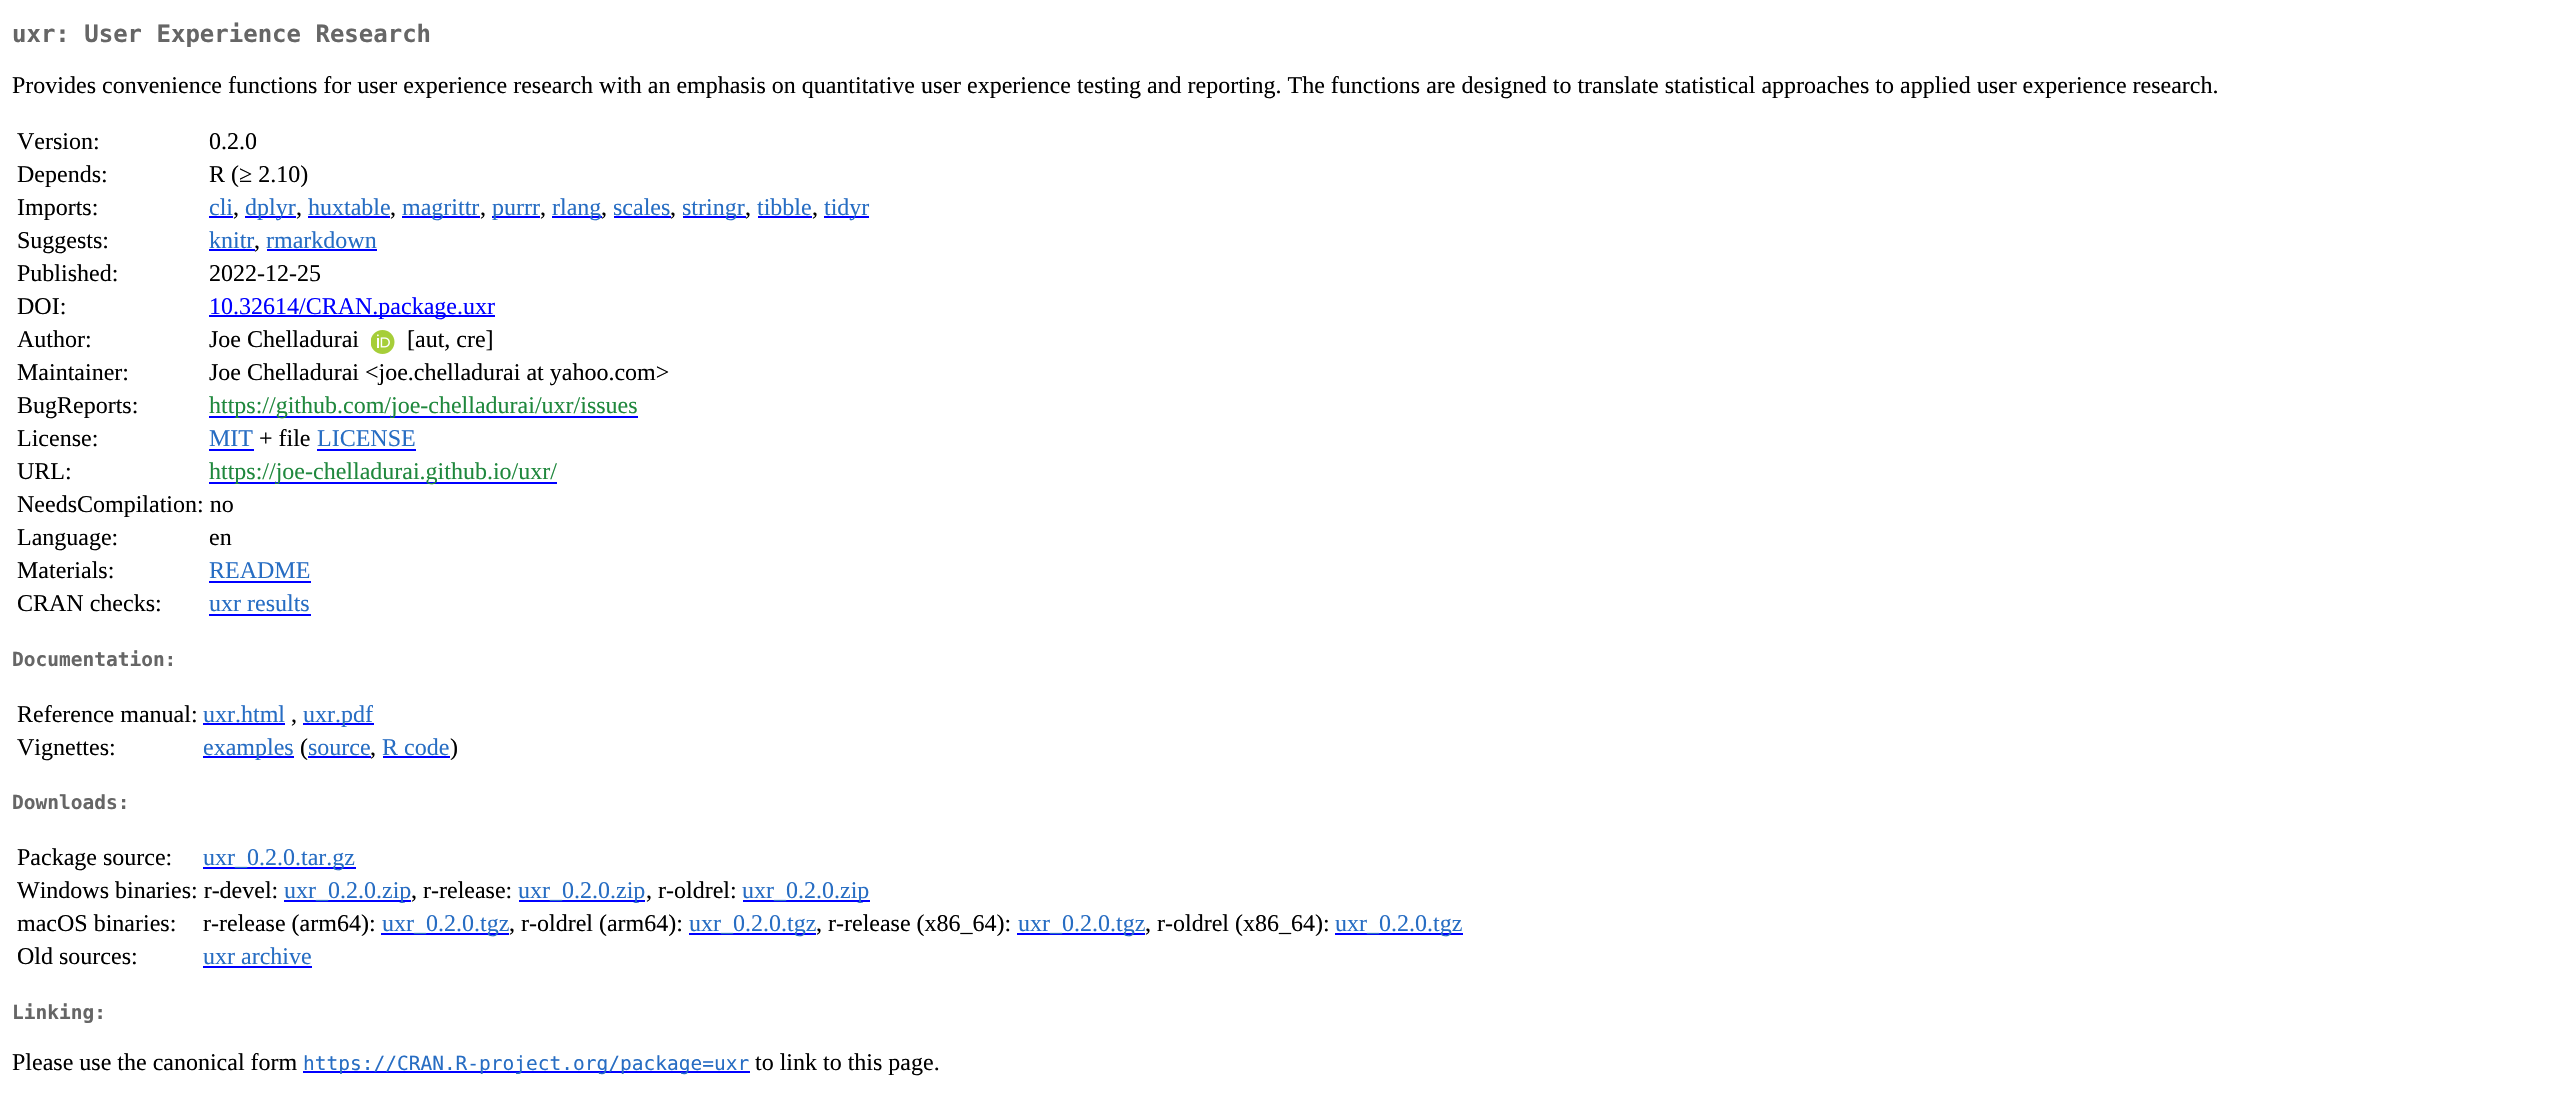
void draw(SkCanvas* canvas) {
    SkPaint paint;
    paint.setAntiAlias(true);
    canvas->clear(0xFFFFFFFF);
    SkFont font1(fontMgr->matchFamilyStyle("DejaVu Sans Mono", SkFontStyle::Bold()), 24);
    font1.setSubpixel(true);
    paint.setColor(0xFF666666);
    canvas->drawString("uxr: User Experience Research", 12, 42, font1, paint);
    SkFont font2(fontMgr->matchFamilyStyle("Liberation Serif", SkFontStyle::Normal()), 24);
    font2.setSubpixel(true);
    paint.setColor(0xFF000000);
    canvas->drawString("Provides convenience functions for user experience research with an emphasis on quantitative user experience testing and reporting. The functions are designed to translate statistical approaches to applied user experience research.", 12, 93, font2, paint);
    canvas->drawString("Version:", 17, 149, font2, paint);
    canvas->drawString("0.2.0", 209, 149, font2, paint);
    canvas->drawString("Depends:", 17, 182, font2, paint);
    canvas->drawString("R (≥ 2.10)", 209, 182, font2, paint);
    canvas->drawString("Imports:", 17, 215, font2, paint);
    paint.setColor(0xFF276DC3);
    canvas->drawString("cli", 209, 215, font2, paint);
    paint.setColor(0xFF0000FF);
    canvas->drawRect(SkRect::MakeXYWH(209, 216, 24, 2), paint);
    paint.setColor(0xFF000000);
    canvas->drawString(",", 233, 215, font2, paint);
    paint.setColor(0xFF0000FF);
    canvas->drawRect(SkRect::MakeXYWH(245, 216, 51, 2), paint);
    paint.setColor(0xFF276DC3);
    canvas->drawString("dplyr", 245, 215, font2, paint);
    paint.setColor(0xFF000000);
    canvas->drawString(",", 296, 215, font2, paint);
    paint.setColor(0xFF276DC3);
    canvas->drawString("huxtable", 308, 215, font2, paint);
    paint.setColor(0xFF0000FF);
    canvas->drawRect(SkRect::MakeXYWH(308, 216, 82, 2), paint);
    paint.setColor(0xFF000000);
    canvas->drawString(",", 390, 215, font2, paint);
    paint.setColor(0xFF0000FF);
    canvas->drawRect(SkRect::MakeXYWH(402, 216, 78, 2), paint);
    paint.setColor(0xFF276DC3);
    canvas->drawString("magrittr", 402, 215, font2, paint);
    paint.setColor(0xFF000000);
    canvas->drawString(",", 480, 215, font2, paint);
    paint.setColor(0xFF0000FF);
    canvas->drawRect(SkRect::MakeXYWH(492, 216, 48, 2), paint);
    paint.setColor(0xFF276DC3);
    canvas->drawString("purrr", 492, 215, font2, paint);
    paint.setColor(0xFF000000);
    canvas->drawString(",", 540, 215, font2, paint);
    paint.setColor(0xFF0000FF);
    canvas->drawRect(SkRect::MakeXYWH(552, 216, 50, 2), paint);
    paint.setColor(0xFF276DC3);
    canvas->drawString("rlang", 552, 215, font2, paint);
    paint.setColor(0xFF000000);
    canvas->drawString(",", 601, 215, font2, paint);
    paint.setColor(0xFF276DC3);
    canvas->drawString("scales", 613, 215, font2, paint);
    paint.setColor(0xFF0000FF);
    canvas->drawRect(SkRect::MakeXYWH(614, 216, 57, 2), paint);
    paint.setColor(0xFF000000);
    canvas->drawString(",", 670, 215, font2, paint);
    paint.setColor(0xFF0000FF);
    canvas->drawRect(SkRect::MakeXYWH(683, 216, 63, 2), paint);
    paint.setColor(0xFF276DC3);
    canvas->drawString("stringr", 682, 215, font2, paint);
    paint.setColor(0xFF000000);
    canvas->drawString(",", 745, 215, font2, paint);
    paint.setColor(0xFF276DC3);
    canvas->drawString("tibble", 757, 215, font2, paint);
    paint.setColor(0xFF0000FF);
    canvas->drawRect(SkRect::MakeXYWH(758, 216, 54, 2), paint);
    paint.setColor(0xFF000000);
    canvas->drawString(",", 812, 215, font2, paint);
    paint.setColor(0xFF0000FF);
    canvas->drawRect(SkRect::MakeXYWH(824, 216, 45, 2), paint);
    paint.setColor(0xFF276DC3);
    canvas->drawString("tidyr", 824, 215, font2, paint);
    paint.setColor(0xFF000000);
    canvas->drawString("Suggests:", 17, 248, font2, paint);
    paint.setColor(0xFF276DC3);
    canvas->drawString("knitr", 209, 248, font2, paint);
    paint.setColor(0xFF0000FF);
    canvas->drawRect(SkRect::MakeXYWH(209, 249, 46, 2), paint);
    paint.setColor(0xFF000000);
    canvas->drawString(",", 254, 248, font2, paint);
    paint.setColor(0xFF276DC3);
    canvas->drawString("rmarkdown", 266, 248, font2, paint);
    paint.setColor(0xFF0000FF);
    canvas->drawRect(SkRect::MakeXYWH(267, 249, 110, 2), paint);
    paint.setColor(0xFF000000);
    canvas->drawString("Published:", 17, 281, font2, paint);
    canvas->drawString("2022-12-25", 209, 281, font2, paint);
    canvas->drawString("DOI:", 17, 314, font2, paint);
    paint.setColor(0xFF0000FF);
    canvas->drawRect(SkRect::MakeXYWH(209, 315, 286, 2), paint);
    canvas->drawString("10.32614/CRAN.package.uxr", 209, 314, font2, paint);
    paint.setColor(0xFF000000);
    canvas->drawString("Author:", 17, 347, font2, paint);
    canvas->drawString("Joe Chelladurai", 209, 347, font2, paint);
    canvas->drawImageRect(SkImages::DeferredFromEncodedData(SkData::MakeFromFileName("img1.png")), SkRect::MakeXYWH(371, 330, 24, 24), SkSamplingOptions());
    canvas->drawString("[aut, cre]", 407, 347, font2, paint);
    canvas->drawString("Maintainer:", 17, 380, font2, paint);
    canvas->drawString("Joe Chelladurai <joe.chelladurai at yahoo.com>", 209, 380, font2, paint);
    canvas->drawString("BugReports:", 17, 413, font2, paint);
    paint.setColor(0xFF0000FF);
    canvas->drawRect(SkRect::MakeXYWH(209, 416, 429, 2), paint);
    paint.setColor(0xFF1F883D);
    canvas->drawString("https://github.com/joe-chelladurai/uxr/issues", 209, 413, font2, paint);
    paint.setColor(0xFF000000);
    canvas->drawString("License:", 17, 446, font2, paint);
    paint.setColor(0xFF276DC3);
    canvas->drawString("MIT", 209, 446, font2, paint);
    paint.setColor(0xFF0000FF);
    canvas->drawRect(SkRect::MakeXYWH(209, 449, 45, 2), paint);
    paint.setColor(0xFF000000);
    canvas->drawString("+ file", 259, 446, font2, paint);
    paint.setColor(0xFF276DC3);
    canvas->drawString("LICENSE", 317, 446, font2, paint);
    paint.setColor(0xFF0000FF);
    canvas->drawRect(SkRect::MakeXYWH(317, 449, 99, 2), paint);
    paint.setColor(0xFF000000);
    canvas->drawString("URL:", 17, 479, font2, paint);
    paint.setColor(0xFF0000FF);
    canvas->drawRect(SkRect::MakeXYWH(209, 482, 348, 2), paint);
    paint.setColor(0xFF1F883D);
    canvas->drawString("https://joe-chelladurai.github.io/uxr/", 209, 479, font2, paint);
    paint.setColor(0xFF000000);
    canvas->drawString("NeedsCompilation: no", 17, 512, font2, paint);
    canvas->drawString("Language:", 17, 545, font2, paint);
    canvas->drawString("en", 209, 545, font2, paint);
    canvas->drawString("Materials:", 17, 578, font2, paint);
    paint.setColor(0xFF276DC3);
    canvas->drawString("README", 209, 578, font2, paint);
    paint.setColor(0xFF0000FF);
    canvas->drawRect(SkRect::MakeXYWH(209, 581, 102, 2), paint);
    paint.setColor(0xFF000000);
    canvas->drawString("CRAN checks:", 17, 611, font2, paint);
    paint.setColor(0xFF276DC3);
    canvas->drawString("uxr results", 209, 611, font2, paint);
    paint.setColor(0xFF0000FF);
    canvas->drawRect(SkRect::MakeXYWH(209, 614, 102, 2), paint);
    SkFont font3(fontMgr->matchFamilyStyle("DejaVu Sans Mono", SkFontStyle::Bold()), 19.5f);
    font3.setSubpixel(true);
    paint.setColor(0xFF666666);
    canvas->drawString("Documentation:", 12, 666, font3, paint);
    paint.setColor(0xFF000000);
    canvas->drawString("Reference manual:", 17, 722, font2, paint);
    paint.setColor(0xFF276DC3);
    canvas->drawString("uxr.html", 203, 722, font2, paint);
    paint.setColor(0xFF0000FF);
    canvas->drawRect(SkRect::MakeXYWH(203, 723, 82, 2), paint);
    paint.setColor(0xFF000000);
    canvas->drawString(",", 291, 722, font2, paint);
    paint.setColor(0xFF0000FF);
    canvas->drawRect(SkRect::MakeXYWH(303, 723, 71, 2), paint);
    paint.setColor(0xFF276DC3);
    canvas->drawString("uxr.pdf", 303, 722, font2, paint);
    paint.setColor(0xFF000000);
    canvas->drawString("Vignettes:", 17, 755, font2, paint);
    paint.setColor(0xFF0000FF);
    canvas->drawRect(SkRect::MakeXYWH(203, 756, 91, 2), paint);
    paint.setColor(0xFF276DC3);
    canvas->drawString("examples", 203, 755, font2, paint);
    paint.setColor(0xFF000000);
    canvas->drawString("(", 300, 755, font2, paint);
    paint.setColor(0xFF276DC3);
    canvas->drawString("source", 308, 755, font2, paint);
    paint.setColor(0xFF0000FF);
    canvas->drawRect(SkRect::MakeXYWH(308, 756, 63, 2), paint);
    paint.setColor(0xFF000000);
    canvas->drawString(",", 370, 755, font2, paint);
    paint.setColor(0xFF276DC3);
    canvas->drawString("R code", 382, 755, font2, paint);
    paint.setColor(0xFF0000FF);
    canvas->drawRect(SkRect::MakeXYWH(383, 756, 67, 2), paint);
    paint.setColor(0xFF000000);
    canvas->drawString(")", 450, 755, font2, paint);
    paint.setColor(0xFF666666);
    canvas->drawString("Downloads:", 12, 809, font3, paint);
    paint.setColor(0xFF000000);
    canvas->drawString("Package source:", 17, 865, font2, paint);
    paint.setColor(0xFF0000FF);
    canvas->drawRect(SkRect::MakeXYWH(203, 867, 153, 2), paint);
    paint.setColor(0xFF276DC3);
    canvas->drawString("uxr_0.2.0.tar.gz", 203, 865, font2, paint);
    paint.setColor(0xFF000000);
    canvas->drawString("Windows binaries: r-devel:", 17, 898, font2, paint);
    paint.setColor(0xFF0000FF);
    canvas->drawRect(SkRect::MakeXYWH(284, 900, 127, 2), paint);
    paint.setColor(0xFF276DC3);
    canvas->drawString("uxr_0.2.0.zip", 284, 898, font2, paint);
    paint.setColor(0xFF000000);
    canvas->drawString(", r-release:", 411, 898, font2, paint);
    paint.setColor(0xFF0000FF);
    canvas->drawRect(SkRect::MakeXYWH(519, 900, 126, 2), paint);
    paint.setColor(0xFF276DC3);
    canvas->drawString("uxr_0.2.0.zip", 518, 898, font2, paint);
    paint.setColor(0xFF000000);
    canvas->drawString(", r-oldrel:", 646, 898, font2, paint);
    paint.setColor(0xFF0000FF);
    canvas->drawRect(SkRect::MakeXYWH(743, 900, 127, 2), paint);
    paint.setColor(0xFF276DC3);
    canvas->drawString("uxr_0.2.0.zip", 742, 898, font2, paint);
    paint.setColor(0xFF000000);
    canvas->drawString("macOS binaries:", 17, 931, font2, paint);
    canvas->drawString("r-release (arm64):", 203, 931, font2, paint);
    paint.setColor(0xFF0000FF);
    canvas->drawRect(SkRect::MakeXYWH(381, 933, 128, 2), paint);
    paint.setColor(0xFF276DC3);
    canvas->drawString("uxr_0.2.0.tgz", 382, 931, font2, paint);
    paint.setColor(0xFF000000);
    canvas->drawString(", r-oldrel (arm64):", 509, 931, font2, paint);
    paint.setColor(0xFF0000FF);
    canvas->drawRect(SkRect::MakeXYWH(689, 933, 127, 2), paint);
    paint.setColor(0xFF276DC3);
    canvas->drawString("uxr_0.2.0.tgz", 689, 931, font2, paint);
    paint.setColor(0xFF000000);
    canvas->drawString(", r-release (x86_64):", 816, 931, font2, paint);
    paint.setColor(0xFF0000FF);
    canvas->drawRect(SkRect::MakeXYWH(1017, 933, 128, 2), paint);
    paint.setColor(0xFF276DC3);
    canvas->drawString("uxr_0.2.0.tgz", 1018, 931, font2, paint);
    paint.setColor(0xFF000000);
    canvas->drawString(", r-oldrel (x86_64):", 1145, 931, font2, paint);
    paint.setColor(0xFF0000FF);
    canvas->drawRect(SkRect::MakeXYWH(1335, 933, 128, 2), paint);
    paint.setColor(0xFF276DC3);
    canvas->drawString("uxr_0.2.0.tgz", 1335, 931, font2, paint);
    paint.setColor(0xFF000000);
    canvas->drawString("Old sources:", 17, 964, font2, paint);
    paint.setColor(0xFF276DC3);
    canvas->drawString("uxr archive", 203, 964, font2, paint);
    paint.setColor(0xFF0000FF);
    canvas->drawRect(SkRect::MakeXYWH(203, 966, 109, 2), paint);
    paint.setColor(0xFF666666);
    canvas->drawString("Linking:", 12, 1019, font3, paint);
    paint.setColor(0xFF000000);
    canvas->drawString("Please use the canonical form", 12, 1070, font2, paint);
    paint.setColor(0xFF0000FF);
    canvas->drawRect(SkRect::MakeXYWH(303, 1071, 447, 2), paint);
    SkFont font4(fontMgr->matchFamilyStyle("DejaVu Sans Mono", SkFontStyle::Normal()), 19.5f);
    font4.setSubpixel(true);
    paint.setColor(0xFF276DC3);
    canvas->drawString("https://CRAN.R-project.org/package=uxr", 303, 1070, font4, paint);
    paint.setColor(0xFF000000);
    canvas->drawString("to link to this page.", 755, 1070, font2, paint);
}
